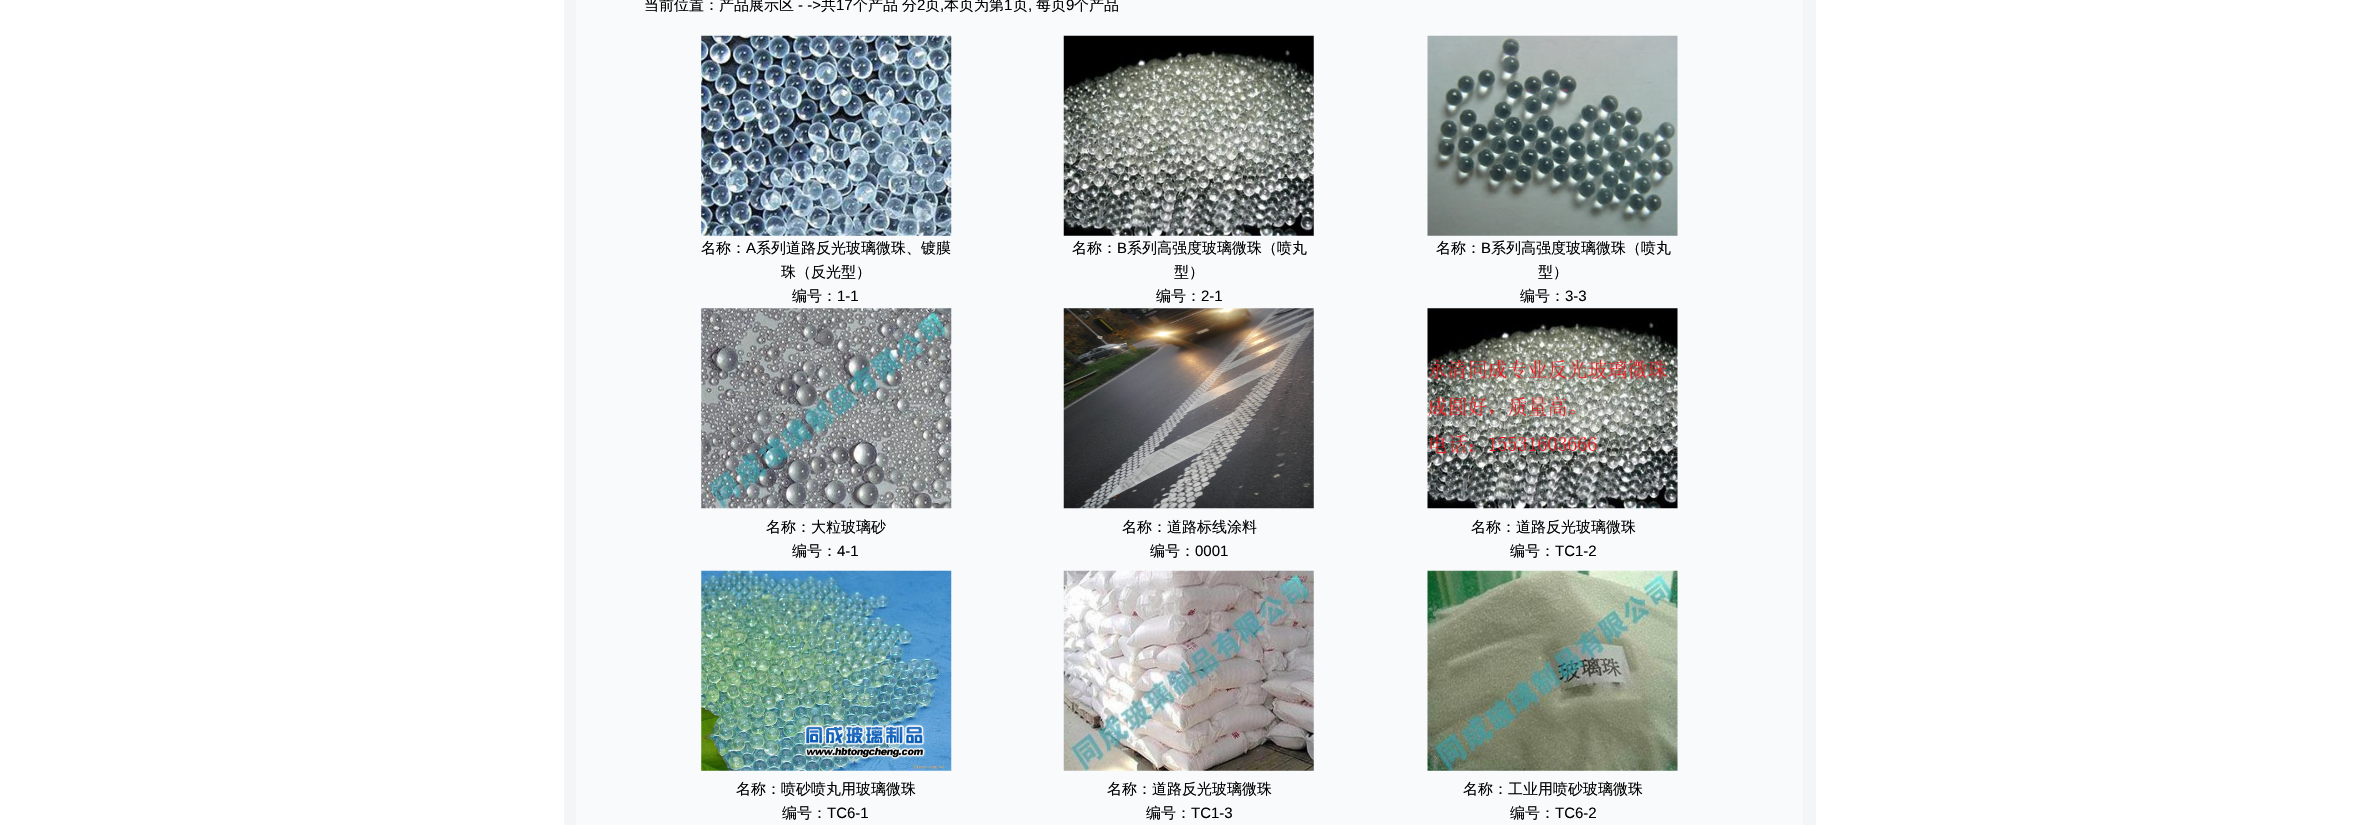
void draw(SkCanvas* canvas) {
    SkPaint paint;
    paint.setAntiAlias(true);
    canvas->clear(0xFFFFFFFF);
    paint.setColor(0xFFF4F5F7);
    canvas->drawRect(SkRect::MakeXYWH(564, 0, 1252, 825), paint);
    paint.setColor(0xFFF9FAFB);
    canvas->drawRect(SkRect::MakeXYWH(576, 0, 1227, 825), paint);
    SkFont font1(fontMgr->matchFamilyStyle("WenQuanYi Zen Hei", SkFontStyle(500, SkFontStyle::kNormal_Width, SkFontStyle::kUpright_Slant)), 15);
    font1.setSubpixel(true);
    paint.setColor(0xFF000000);
    canvas->drawString("当前位置：产品展示区", 644, 10, font1, paint);
    SkFont font2(fontMgr->matchFamilyStyle("Liberation Sans", SkFontStyle::Normal()), 15);
    font2.setSubpixel(true);
    canvas->drawString("- ->", 798, 10, font2, paint);
    canvas->drawString("共", 821, 10, font1, paint);
    canvas->drawString("17", 836, 10, font2, paint);
    canvas->drawString("个产品", 853, 10, font1, paint);
    canvas->drawString("分", 902, 10, font1, paint);
    canvas->drawString("2", 917, 10, font2, paint);
    canvas->drawString("页", 925, 10, font1, paint);
    canvas->drawString("本页为第", 944, 10, font1, paint);
    canvas->drawString("1", 1004, 10, font2, paint);
    canvas->drawString("页", 1013, 10, font1, paint);
    canvas->drawString("每页", 1036, 10, font1, paint);
    canvas->drawString("9", 1066, 10, font2, paint);
    canvas->drawString("个产品", 1074, 10, font1, paint);
    canvas->drawString(",", 940, 10, font2, paint);
    canvas->drawString(",", 1028, 10, font2, paint);
    canvas->drawImageRect(SkImages::DeferredFromEncodedData(SkData::MakeFromFileName("img1.png")), SkRect::MakeXYWH(701, 35, 251, 201), SkSamplingOptions());
    canvas->drawString("名称：", 701, 253, font1, paint);
    canvas->drawString("A", 746, 253, font2, paint);
    canvas->drawString("系列道路反光玻璃微珠、镀膜", 756, 253, font1, paint);
    canvas->drawString("珠（反光型）", 781, 277, font1, paint);
    canvas->drawString("编号：", 792, 301, font1, paint);
    canvas->drawString("1-1", 837, 301, font2, paint);
    canvas->drawImageRect(SkImages::DeferredFromEncodedData(SkData::MakeFromFileName("img2.png")), SkRect::MakeXYWH(1063, 35, 251, 201), SkSamplingOptions());
    canvas->drawString("名称：", 1072, 253, font1, paint);
    canvas->drawString("B", 1117, 253, font2, paint);
    canvas->drawString("系列高强度玻璃微珠（喷丸", 1127, 253, font1, paint);
    canvas->drawString("型）", 1174, 277, font1, paint);
    canvas->drawString("编号：", 1156, 301, font1, paint);
    canvas->drawString("2-1", 1201, 301, font2, paint);
    canvas->drawImageRect(SkImages::DeferredFromEncodedData(SkData::MakeFromFileName("img3.png")), SkRect::MakeXYWH(1427, 35, 251, 201), SkSamplingOptions());
    canvas->drawString("名称：", 1436, 253, font1, paint);
    canvas->drawString("B", 1481, 253, font2, paint);
    canvas->drawString("系列高强度玻璃微珠（喷丸", 1491, 253, font1, paint);
    canvas->drawString("型）", 1538, 277, font1, paint);
    canvas->drawString("编号：", 1520, 301, font1, paint);
    canvas->drawString("3-3", 1565, 301, font2, paint);
    canvas->drawImageRect(SkImages::DeferredFromEncodedData(SkData::MakeFromFileName("img4.png")), SkRect::MakeXYWH(701, 308, 251, 201), SkSamplingOptions());
    canvas->drawString("名称：大粒玻璃砂", 766, 532, font1, paint);
    canvas->drawString("编号：", 792, 556, font1, paint);
    canvas->drawString("4-1", 837, 556, font2, paint);
    canvas->drawImageRect(SkImages::DeferredFromEncodedData(SkData::MakeFromFileName("img5.png")), SkRect::MakeXYWH(1063, 308, 251, 201), SkSamplingOptions());
    canvas->drawString("名称：道路标线涂料", 1122, 532, font1, paint);
    canvas->drawString("编号：", 1150, 556, font1, paint);
    canvas->drawString("0001", 1195, 556, font2, paint);
    canvas->drawImageRect(SkImages::DeferredFromEncodedData(SkData::MakeFromFileName("img6.png")), SkRect::MakeXYWH(1427, 308, 251, 201), SkSamplingOptions());
    canvas->drawString("名称：道路反光玻璃微珠", 1471, 532, font1, paint);
    canvas->drawString("编号：", 1510, 556, font1, paint);
    canvas->drawString("TC1-2", 1555, 556, font2, paint);
    canvas->drawImageRect(SkImages::DeferredFromEncodedData(SkData::MakeFromFileName("img7.png")), SkRect::MakeXYWH(701, 570, 251, 201), SkSamplingOptions());
    canvas->drawString("名称：喷砂喷丸用玻璃微珠", 736, 794, font1, paint);
    canvas->drawString("编号：", 782, 818, font1, paint);
    canvas->drawString("TC6-1", 827, 818, font2, paint);
    canvas->drawImageRect(SkImages::DeferredFromEncodedData(SkData::MakeFromFileName("img8.png")), SkRect::MakeXYWH(1063, 570, 251, 201), SkSamplingOptions());
    canvas->drawString("名称：道路反光玻璃微珠", 1107, 794, font1, paint);
    canvas->drawString("编号：", 1146, 818, font1, paint);
    canvas->drawString("TC1-3", 1191, 818, font2, paint);
    canvas->drawImageRect(SkImages::DeferredFromEncodedData(SkData::MakeFromFileName("img9.png")), SkRect::MakeXYWH(1427, 570, 251, 201), SkSamplingOptions());
    canvas->drawString("名称：工业用喷砂玻璃微珠", 1463, 794, font1, paint);
    canvas->drawString("编号：", 1510, 818, font1, paint);
    canvas->drawString("TC6-2", 1555, 818, font2, paint);
}
